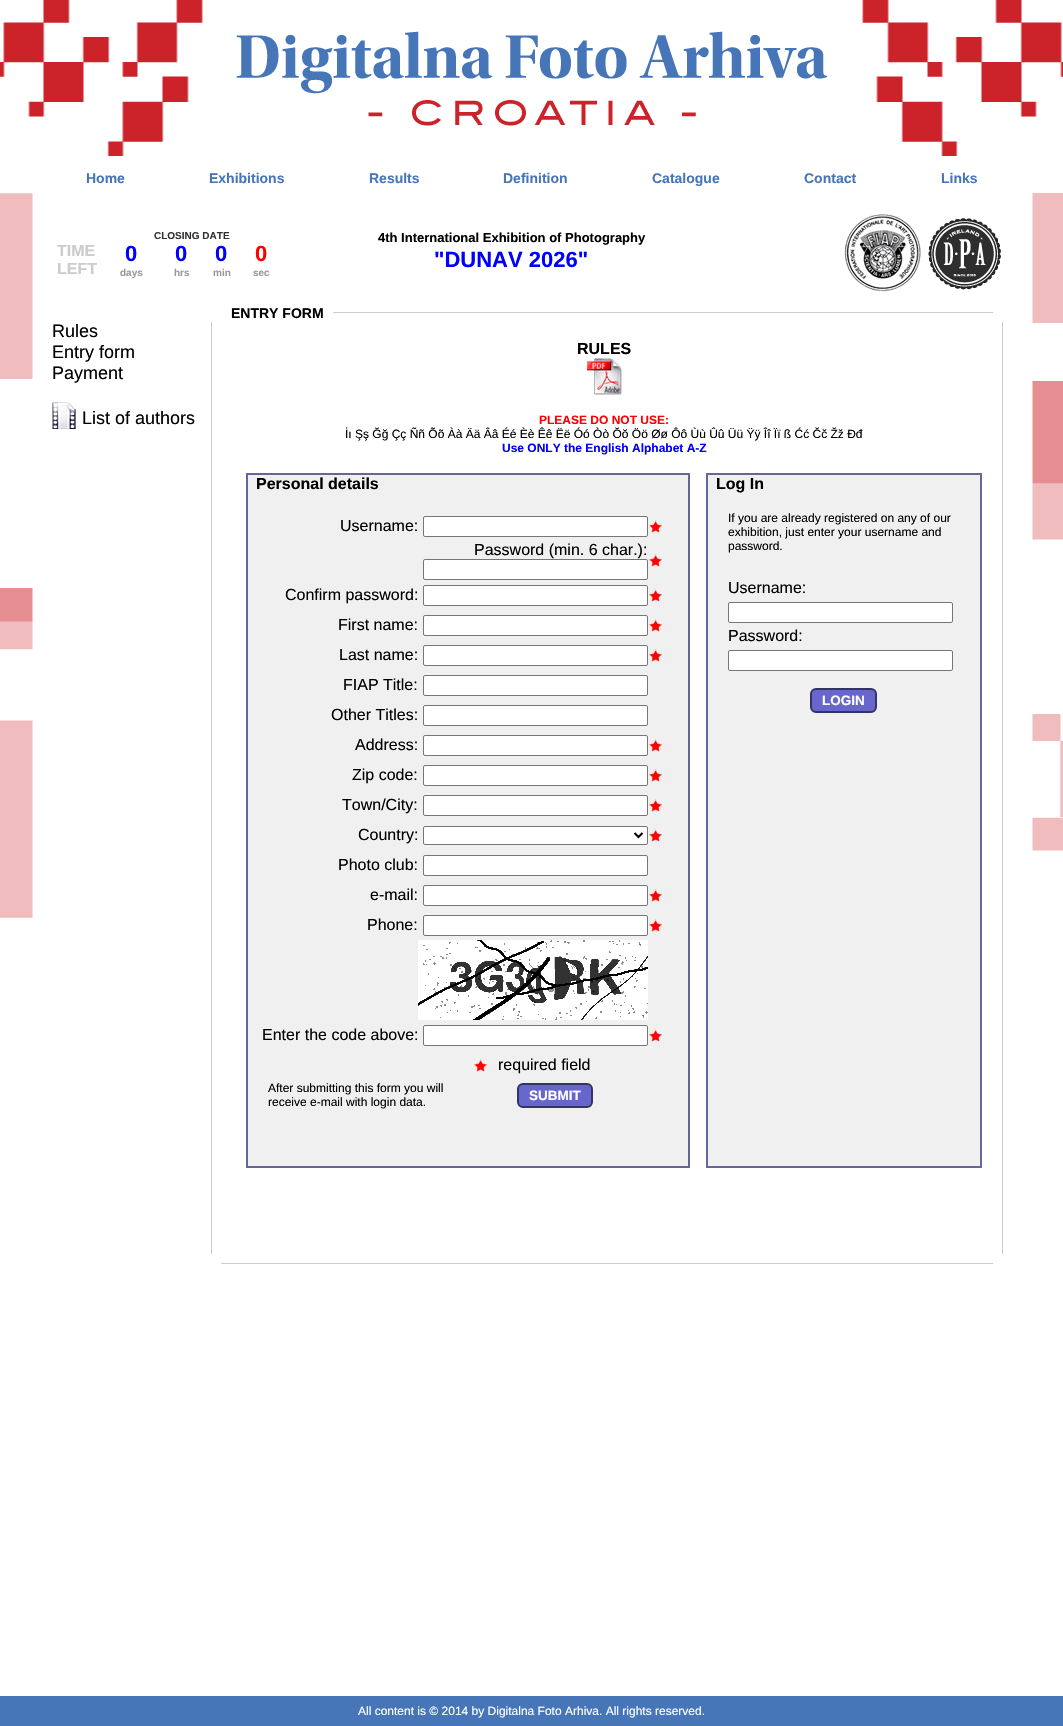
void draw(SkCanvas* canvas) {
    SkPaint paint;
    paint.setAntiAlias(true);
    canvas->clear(0xFFFFFFFF);
    canvas->drawImageRect(SkImages::DeferredFromEncodedData(SkData::MakeFromFileName("img1.png")), SkRect::MakeXYWH(0, 0, 1063, 918), SkSamplingOptions());
    canvas->drawImageRect(SkImages::DeferredFromEncodedData(SkData::MakeFromFileName("img2.png")), SkRect::MakeXYWH(236, 31, 592, 95), SkSamplingOptions());
    SkFont font1(fontMgr->matchFamilyStyle("Liberation Sans", SkFontStyle::Bold()), 14);
    font1.setSubpixel(true);
    paint.setColor(0xFF4675B8);
    canvas->drawString("Home", 86, 183, font1, paint);
    canvas->drawString("Exhibitions", 209, 183, font1, paint);
    canvas->drawString("Results", 369, 183, font1, paint);
    canvas->drawString("Definition", 503, 183, font1, paint);
    canvas->drawString("Catalogue", 652, 183, font1, paint);
    canvas->drawString("Contact", 804, 183, font1, paint);
    canvas->drawString("Links", 941, 183, font1, paint);
    canvas->drawImageRect(SkImages::DeferredFromEncodedData(SkData::MakeFromFileName("img3.png")), SkRect::MakeXYWH(844, 214, 157, 78), SkSamplingOptions());
    SkFont font2(fontMgr->matchFamilyStyle("Liberation Sans", SkFontStyle::Bold()), 10);
    font2.setSubpixel(true);
    paint.setColor(0xFF333333);
    canvas->drawString("CLOSING DATE", 154, 239, font2, paint);
    SkFont font3(fontMgr->matchFamilyStyle("Liberation Sans", SkFontStyle::Bold()), 16);
    font3.setSubpixel(true);
    paint.setColor(0xFFCCCCCC);
    canvas->drawString("TIME", 57, 256, font3, paint);
    canvas->drawString("LEFT", 57, 274, font3, paint);
    SkFont font4(fontMgr->matchFamilyStyle("Liberation Sans", SkFontStyle::Bold()), 22);
    font4.setSubpixel(true);
    paint.setColor(0xFF0000FF);
    canvas->drawString("0", 125, 261, font4, paint);
    canvas->drawString("0", 175, 261, font4, paint);
    canvas->drawString("0", 215, 261, font4, paint);
    paint.setColor(0xFFFF0000);
    canvas->drawString("0", 255, 261, font4, paint);
    paint.setColor(0xFF999999);
    canvas->drawString("days", 120, 276, font2, paint);
    canvas->drawString("hrs", 174, 276, font2, paint);
    canvas->drawString("min", 213, 276, font2, paint);
    canvas->drawString("sec", 253, 276, font2, paint);
    SkFont font5(fontMgr->matchFamilyStyle("Liberation Sans", SkFontStyle::Bold()), 13);
    font5.setSubpixel(true);
    paint.setColor(0xFF000000);
    canvas->drawString("4th International Exhibition of Photography", 378, 242, font5, paint);
    paint.setColor(0xFF0000FF);
    canvas->drawString("\"DUNAV 2026\"", 434, 267, font4, paint);
    SkFont font6(fontMgr->matchFamilyStyle("Liberation Sans", SkFontStyle::Normal()), 18);
    font6.setSubpixel(true);
    paint.setColor(0xFF000000);
    canvas->drawString("Rules", 52, 337, font6, paint);
    canvas->drawString("Entry form", 52, 358, font6, paint);
    canvas->drawString("Payment", 52, 379, font6, paint);
    canvas->drawImageRect(SkImages::DeferredFromEncodedData(SkData::MakeFromFileName("img4.png")), SkRect::MakeXYWH(52, 402, 24, 27), SkSamplingOptions());
    canvas->drawString("List of authors", 82, 424, font6, paint);
    canvas->drawString("ENTRY FORM", 231, 318, font1, paint);
    paint.setColor(0xFFCCCCCC);
    canvas->drawRect(SkRect::MakeXYWH(333, 312, 660, 1), paint);
    canvas->drawRect(SkRect::MakeXYWH(211, 322, 1, 932), paint);
    paint.setColor(0xFF000000);
    canvas->drawString("RULES", 577, 354, font3, paint);
    canvas->drawImageRect(SkImages::DeferredFromEncodedData(SkData::MakeFromFileName("img5.png")), SkRect::MakeXYWH(587, 358, 35, 37), SkSamplingOptions());
    SkFont font7(fontMgr->matchFamilyStyle("Liberation Sans", SkFontStyle::Bold()), 12);
    font7.setSubpixel(true);
    paint.setColor(0xFFFF0000);
    canvas->drawString("PLEASE DO NOT USE:", 539, 424, font7, paint);
    SkFont font8(fontMgr->matchFamilyStyle("Liberation Sans", SkFontStyle::Normal()), 12);
    font8.setSubpixel(true);
    paint.setColor(0xFF000000);
    canvas->drawString("İı Şş Ğğ Çç Ññ Õõ Àà Ää Ââ Éé Èè Êê Ëë Óó Òò Ŏŏ Öö Øø Ôô Ùù Ûû Üü Ÿÿ Îî Ïï ß Ćć Čč Žž Đđ", 345, 438, font8, paint);
    paint.setColor(0xFF0000FF);
    canvas->drawString("Use ONLY the English Alphabet A-Z", 502, 452, font7, paint);
    paint.setColor(0xFFF0F0F0);
    canvas->drawRect(SkRect::MakeXYWH(247, 474, 442, 693), paint);
    paint.setStyle(SkPaint::kStroke_Style);
    paint.setStrokeWidth(2);
    paint.setColor(0xFF666699);
    canvas->drawRect(SkRect::MakeXYWH(247, 474, 442, 693), paint);
    paint.setStyle(SkPaint::kFill_Style);
    paint.setColor(0xFF000000);
    canvas->drawString("Personal details", 256, 489, font3, paint);
    SkFont font9(fontMgr->matchFamilyStyle("Liberation Sans", SkFontStyle::Normal()), 16);
    font9.setSubpixel(true);
    canvas->drawString("Username:", 340, 531, font9, paint);
    paint.setColor(0xFFFFFFFF);
    canvas->drawRoundRect(SkRect::MakeXYWH(423.5f, 516.5f, 224, 20), 1.5f, 1.5f, paint);
    paint.setStyle(SkPaint::kStroke_Style);
    paint.setStrokeWidth(1);
    paint.setColor(0xFF767676);
    canvas->drawRoundRect(SkRect::MakeXYWH(423.5f, 516.5f, 224, 20), 1.5f, 1.5f, paint);
    canvas->drawImageRect(SkImages::DeferredFromEncodedData(SkData::MakeFromFileName("img6.png")), SkRect::MakeXYWH(649, 520, 13, 13), SkSamplingOptions());
    paint.setStyle(SkPaint::kFill_Style);
    paint.setColor(0xFF000000);
    canvas->drawString("Password (min. 6 char.):", 474, 555, font9, paint);
    paint.setColor(0xFFFFFFFF);
    canvas->drawRoundRect(SkRect::MakeXYWH(423.5f, 559.5f, 224, 20), 1.5f, 1.5f, paint);
    paint.setStyle(SkPaint::kStroke_Style);
    paint.setColor(0xFF767676);
    canvas->drawRoundRect(SkRect::MakeXYWH(423.5f, 559.5f, 224, 20), 1.5f, 1.5f, paint);
    canvas->drawImageRect(SkImages::DeferredFromEncodedData(SkData::MakeFromFileName("img6.png")), SkRect::MakeXYWH(649, 554, 13, 13), SkSamplingOptions());
    paint.setStyle(SkPaint::kFill_Style);
    paint.setColor(0xFF000000);
    canvas->drawString("Confirm password:", 285, 600, font9, paint);
    paint.setColor(0xFFFFFFFF);
    canvas->drawRoundRect(SkRect::MakeXYWH(423.5f, 585.5f, 224, 20), 1.5f, 1.5f, paint);
    paint.setStyle(SkPaint::kStroke_Style);
    paint.setColor(0xFF767676);
    canvas->drawRoundRect(SkRect::MakeXYWH(423.5f, 585.5f, 224, 20), 1.5f, 1.5f, paint);
    canvas->drawImageRect(SkImages::DeferredFromEncodedData(SkData::MakeFromFileName("img6.png")), SkRect::MakeXYWH(649, 589, 13, 13), SkSamplingOptions());
    paint.setStyle(SkPaint::kFill_Style);
    paint.setColor(0xFF000000);
    canvas->drawString("First name:", 338, 630, font9, paint);
    paint.setColor(0xFFFFFFFF);
    canvas->drawRoundRect(SkRect::MakeXYWH(423.5f, 615.5f, 224, 20), 1.5f, 1.5f, paint);
    paint.setStyle(SkPaint::kStroke_Style);
    paint.setColor(0xFF767676);
    canvas->drawRoundRect(SkRect::MakeXYWH(423.5f, 615.5f, 224, 20), 1.5f, 1.5f, paint);
    canvas->drawImageRect(SkImages::DeferredFromEncodedData(SkData::MakeFromFileName("img6.png")), SkRect::MakeXYWH(649, 619, 13, 13), SkSamplingOptions());
    paint.setStyle(SkPaint::kFill_Style);
    paint.setColor(0xFF000000);
    canvas->drawString("Last name:", 339, 660, font9, paint);
    paint.setColor(0xFFFFFFFF);
    canvas->drawRoundRect(SkRect::MakeXYWH(423.5f, 645.5f, 224, 20), 1.5f, 1.5f, paint);
    paint.setStyle(SkPaint::kStroke_Style);
    paint.setColor(0xFF767676);
    canvas->drawRoundRect(SkRect::MakeXYWH(423.5f, 645.5f, 224, 20), 1.5f, 1.5f, paint);
    canvas->drawImageRect(SkImages::DeferredFromEncodedData(SkData::MakeFromFileName("img6.png")), SkRect::MakeXYWH(649, 649, 13, 13), SkSamplingOptions());
    paint.setStyle(SkPaint::kFill_Style);
    paint.setColor(0xFF000000);
    canvas->drawString("FIAP Title:", 343, 690, font9, paint);
    paint.setColor(0xFFFFFFFF);
    canvas->drawRoundRect(SkRect::MakeXYWH(423.5f, 675.5f, 224, 20), 1.5f, 1.5f, paint);
    paint.setStyle(SkPaint::kStroke_Style);
    paint.setColor(0xFF767676);
    canvas->drawRoundRect(SkRect::MakeXYWH(423.5f, 675.5f, 224, 20), 1.5f, 1.5f, paint);
    paint.setStyle(SkPaint::kFill_Style);
    paint.setColor(0xFF000000);
    canvas->drawString("Other Titles:", 331, 720, font9, paint);
    paint.setColor(0xFFFFFFFF);
    canvas->drawRoundRect(SkRect::MakeXYWH(423.5f, 705.5f, 224, 20), 1.5f, 1.5f, paint);
    paint.setStyle(SkPaint::kStroke_Style);
    paint.setColor(0xFF767676);
    canvas->drawRoundRect(SkRect::MakeXYWH(423.5f, 705.5f, 224, 20), 1.5f, 1.5f, paint);
    paint.setStyle(SkPaint::kFill_Style);
    paint.setColor(0xFF000000);
    canvas->drawString("Address:", 355, 750, font9, paint);
    paint.setColor(0xFFFFFFFF);
    canvas->drawRoundRect(SkRect::MakeXYWH(423.5f, 735.5f, 224, 20), 1.5f, 1.5f, paint);
    paint.setStyle(SkPaint::kStroke_Style);
    paint.setColor(0xFF767676);
    canvas->drawRoundRect(SkRect::MakeXYWH(423.5f, 735.5f, 224, 20), 1.5f, 1.5f, paint);
    canvas->drawImageRect(SkImages::DeferredFromEncodedData(SkData::MakeFromFileName("img6.png")), SkRect::MakeXYWH(649, 739, 13, 13), SkSamplingOptions());
    paint.setStyle(SkPaint::kFill_Style);
    paint.setColor(0xFF000000);
    canvas->drawString("Zip code:", 352, 780, font9, paint);
    paint.setColor(0xFFFFFFFF);
    canvas->drawRoundRect(SkRect::MakeXYWH(423.5f, 765.5f, 224, 20), 1.5f, 1.5f, paint);
    paint.setStyle(SkPaint::kStroke_Style);
    paint.setColor(0xFF767676);
    canvas->drawRoundRect(SkRect::MakeXYWH(423.5f, 765.5f, 224, 20), 1.5f, 1.5f, paint);
    canvas->drawImageRect(SkImages::DeferredFromEncodedData(SkData::MakeFromFileName("img6.png")), SkRect::MakeXYWH(649, 769, 13, 13), SkSamplingOptions());
    paint.setStyle(SkPaint::kFill_Style);
    paint.setColor(0xFF000000);
    canvas->drawString("Town/City:", 342, 810, font9, paint);
    paint.setColor(0xFFFFFFFF);
    canvas->drawRoundRect(SkRect::MakeXYWH(423.5f, 795.5f, 224, 20), 1.5f, 1.5f, paint);
    paint.setStyle(SkPaint::kStroke_Style);
    paint.setColor(0xFF767676);
    canvas->drawRoundRect(SkRect::MakeXYWH(423.5f, 795.5f, 224, 20), 1.5f, 1.5f, paint);
    canvas->drawImageRect(SkImages::DeferredFromEncodedData(SkData::MakeFromFileName("img6.png")), SkRect::MakeXYWH(649, 799, 13, 13), SkSamplingOptions());
    paint.setStyle(SkPaint::kFill_Style);
    paint.setColor(0xFF000000);
    canvas->drawString("Country:", 358, 840, font9, paint);
    paint.setColor(0xFFFFFFFF);
    canvas->drawRoundRect(SkRect::MakeXYWH(423.5f, 826.5f, 224, 18), 1.5f, 1.5f, paint);
    paint.setStyle(SkPaint::kStroke_Style);
    paint.setColor(0xFF767676);
    canvas->drawRoundRect(SkRect::MakeXYWH(423.5f, 826.5f, 224, 18), 1.5f, 1.5f, paint);
    paint.setStrokeWidth(2);
    paint.setColor(0xFF000000);
    canvas->drawPath(SkPathBuilder().moveTo(634.5f, 833).lineTo(638.5f, 837).lineTo(642.5f, 833).detach(), paint);
    canvas->drawImageRect(SkImages::DeferredFromEncodedData(SkData::MakeFromFileName("img6.png")), SkRect::MakeXYWH(649, 829, 13, 13), SkSamplingOptions());
    paint.setStyle(SkPaint::kFill_Style);
    canvas->drawString("Photo club:", 338, 870, font9, paint);
    paint.setColor(0xFFFFFFFF);
    canvas->drawRoundRect(SkRect::MakeXYWH(423.5f, 855.5f, 224, 20), 1.5f, 1.5f, paint);
    paint.setStyle(SkPaint::kStroke_Style);
    paint.setStrokeWidth(1);
    paint.setColor(0xFF767676);
    canvas->drawRoundRect(SkRect::MakeXYWH(423.5f, 855.5f, 224, 20), 1.5f, 1.5f, paint);
    paint.setStyle(SkPaint::kFill_Style);
    paint.setColor(0xFF000000);
    canvas->drawString("e-mail:", 370, 900, font9, paint);
    paint.setColor(0xFFFFFFFF);
    canvas->drawRoundRect(SkRect::MakeXYWH(423.5f, 885.5f, 224, 20), 1.5f, 1.5f, paint);
    paint.setStyle(SkPaint::kStroke_Style);
    paint.setColor(0xFF767676);
    canvas->drawRoundRect(SkRect::MakeXYWH(423.5f, 885.5f, 224, 20), 1.5f, 1.5f, paint);
    canvas->drawImageRect(SkImages::DeferredFromEncodedData(SkData::MakeFromFileName("img6.png")), SkRect::MakeXYWH(649, 889, 13, 13), SkSamplingOptions());
    paint.setStyle(SkPaint::kFill_Style);
    paint.setColor(0xFF000000);
    canvas->drawString("Phone:", 367, 930, font9, paint);
    paint.setColor(0xFFFFFFFF);
    canvas->drawRoundRect(SkRect::MakeXYWH(423.5f, 915.5f, 224, 20), 1.5f, 1.5f, paint);
    paint.setStyle(SkPaint::kStroke_Style);
    paint.setColor(0xFF767676);
    canvas->drawRoundRect(SkRect::MakeXYWH(423.5f, 915.5f, 224, 20), 1.5f, 1.5f, paint);
    canvas->drawImageRect(SkImages::DeferredFromEncodedData(SkData::MakeFromFileName("img6.png")), SkRect::MakeXYWH(649, 919, 13, 13), SkSamplingOptions());
    canvas->drawImageRect(SkImages::DeferredFromEncodedData(SkData::MakeFromFileName("img7.png")), SkRect::MakeXYWH(418, 940, 230, 80), SkSamplingOptions());
    paint.setStyle(SkPaint::kFill_Style);
    paint.setColor(0xFF000000);
    canvas->drawString("Enter the code above:", 262, 1040, font9, paint);
    paint.setColor(0xFFFFFFFF);
    canvas->drawRoundRect(SkRect::MakeXYWH(423.5f, 1025.5f, 224, 20), 1.5f, 1.5f, paint);
    paint.setStyle(SkPaint::kStroke_Style);
    paint.setColor(0xFF767676);
    canvas->drawRoundRect(SkRect::MakeXYWH(423.5f, 1025.5f, 224, 20), 1.5f, 1.5f, paint);
    canvas->drawImageRect(SkImages::DeferredFromEncodedData(SkData::MakeFromFileName("img6.png")), SkRect::MakeXYWH(649, 1029, 13, 13), SkSamplingOptions());
    canvas->drawImageRect(SkImages::DeferredFromEncodedData(SkData::MakeFromFileName("img6.png")), SkRect::MakeXYWH(474, 1059, 13, 13), SkSamplingOptions());
    paint.setStyle(SkPaint::kFill_Style);
    paint.setColor(0xFF000000);
    canvas->drawString("required field", 498, 1070, font9, paint);
    canvas->drawString("After submitting this form you will", 268, 1092, font8, paint);
    canvas->drawString("receive e-mail with login data.", 268, 1106, font8, paint);
    paint.setColor(0xFF6666CC);
    canvas->drawRoundRect(SkRect::MakeXYWH(518, 1084, 74, 23), 5, 5, paint);
    paint.setStyle(SkPaint::kStroke_Style);
    paint.setStrokeWidth(2);
    paint.setColor(0xFF333366);
    canvas->drawRoundRect(SkRect::MakeXYWH(518, 1084, 74, 23), 5, 5, paint);
    SkFont font10(fontMgr->matchFamilyStyle("Liberation Sans", SkFontStyle::Bold()), 13.5f);
    font10.setSubpixel(true);
    paint.setStyle(SkPaint::kFill_Style);
    paint.setColor(0xFFFFFFFF);
    canvas->drawString("SUBMIT", 529, 1100, font10, paint);
    paint.setColor(0xFFF0F0F0);
    canvas->drawRect(SkRect::MakeXYWH(707, 474, 274, 693), paint);
    paint.setStyle(SkPaint::kStroke_Style);
    paint.setColor(0xFF666699);
    canvas->drawRect(SkRect::MakeXYWH(707, 474, 274, 693), paint);
    paint.setStyle(SkPaint::kFill_Style);
    paint.setColor(0xFF000000);
    canvas->drawString("Log In", 716, 489, font3, paint);
    canvas->drawString("If you are already registered on any of our", 728, 522, font8, paint);
    canvas->drawString("exhibition, just enter your username and", 728, 536, font8, paint);
    canvas->drawString("password.", 728, 550, font8, paint);
    canvas->drawString("Username:", 728, 593, font9, paint);
    paint.setColor(0xFFFFFFFF);
    canvas->drawRoundRect(SkRect::MakeXYWH(728.5f, 602.5f, 224, 20), 1.5f, 1.5f, paint);
    paint.setStyle(SkPaint::kStroke_Style);
    paint.setStrokeWidth(1);
    paint.setColor(0xFF767676);
    canvas->drawRoundRect(SkRect::MakeXYWH(728.5f, 602.5f, 224, 20), 1.5f, 1.5f, paint);
    paint.setStyle(SkPaint::kFill_Style);
    paint.setColor(0xFF000000);
    canvas->drawString("Password:", 728, 641, font9, paint);
    paint.setColor(0xFFFFFFFF);
    canvas->drawRoundRect(SkRect::MakeXYWH(728.5f, 650.5f, 224, 20), 1.5f, 1.5f, paint);
    paint.setStyle(SkPaint::kStroke_Style);
    paint.setColor(0xFF767676);
    canvas->drawRoundRect(SkRect::MakeXYWH(728.5f, 650.5f, 224, 20), 1.5f, 1.5f, paint);
    paint.setStyle(SkPaint::kFill_Style);
    paint.setColor(0xFF6666CC);
    canvas->drawRoundRect(SkRect::MakeXYWH(811, 689, 65, 23), 5, 5, paint);
    paint.setStyle(SkPaint::kStroke_Style);
    paint.setStrokeWidth(2);
    paint.setColor(0xFF333366);
    canvas->drawRoundRect(SkRect::MakeXYWH(811, 689, 65, 23), 5, 5, paint);
    paint.setStyle(SkPaint::kFill_Style);
    paint.setColor(0xFFFFFFFF);
    canvas->drawString("LOGIN", 822, 705, font10, paint);
    paint.setColor(0xFFCCCCCC);
    canvas->drawRect(SkRect::MakeXYWH(1002, 322, 1, 932), paint);
    canvas->drawRect(SkRect::MakeXYWH(221, 1263, 772, 1), paint);
    paint.setColor(0xFF4675B8);
    canvas->drawRect(SkRect::MakeXYWH(0, 1696, 1063, 30), paint);
    paint.setColor(0xFFFFFFFF);
    canvas->drawString("All content is © 2014 by Digitalna Foto Arhiva. All rights reserved.", 358, 1715, font8, paint);
}
